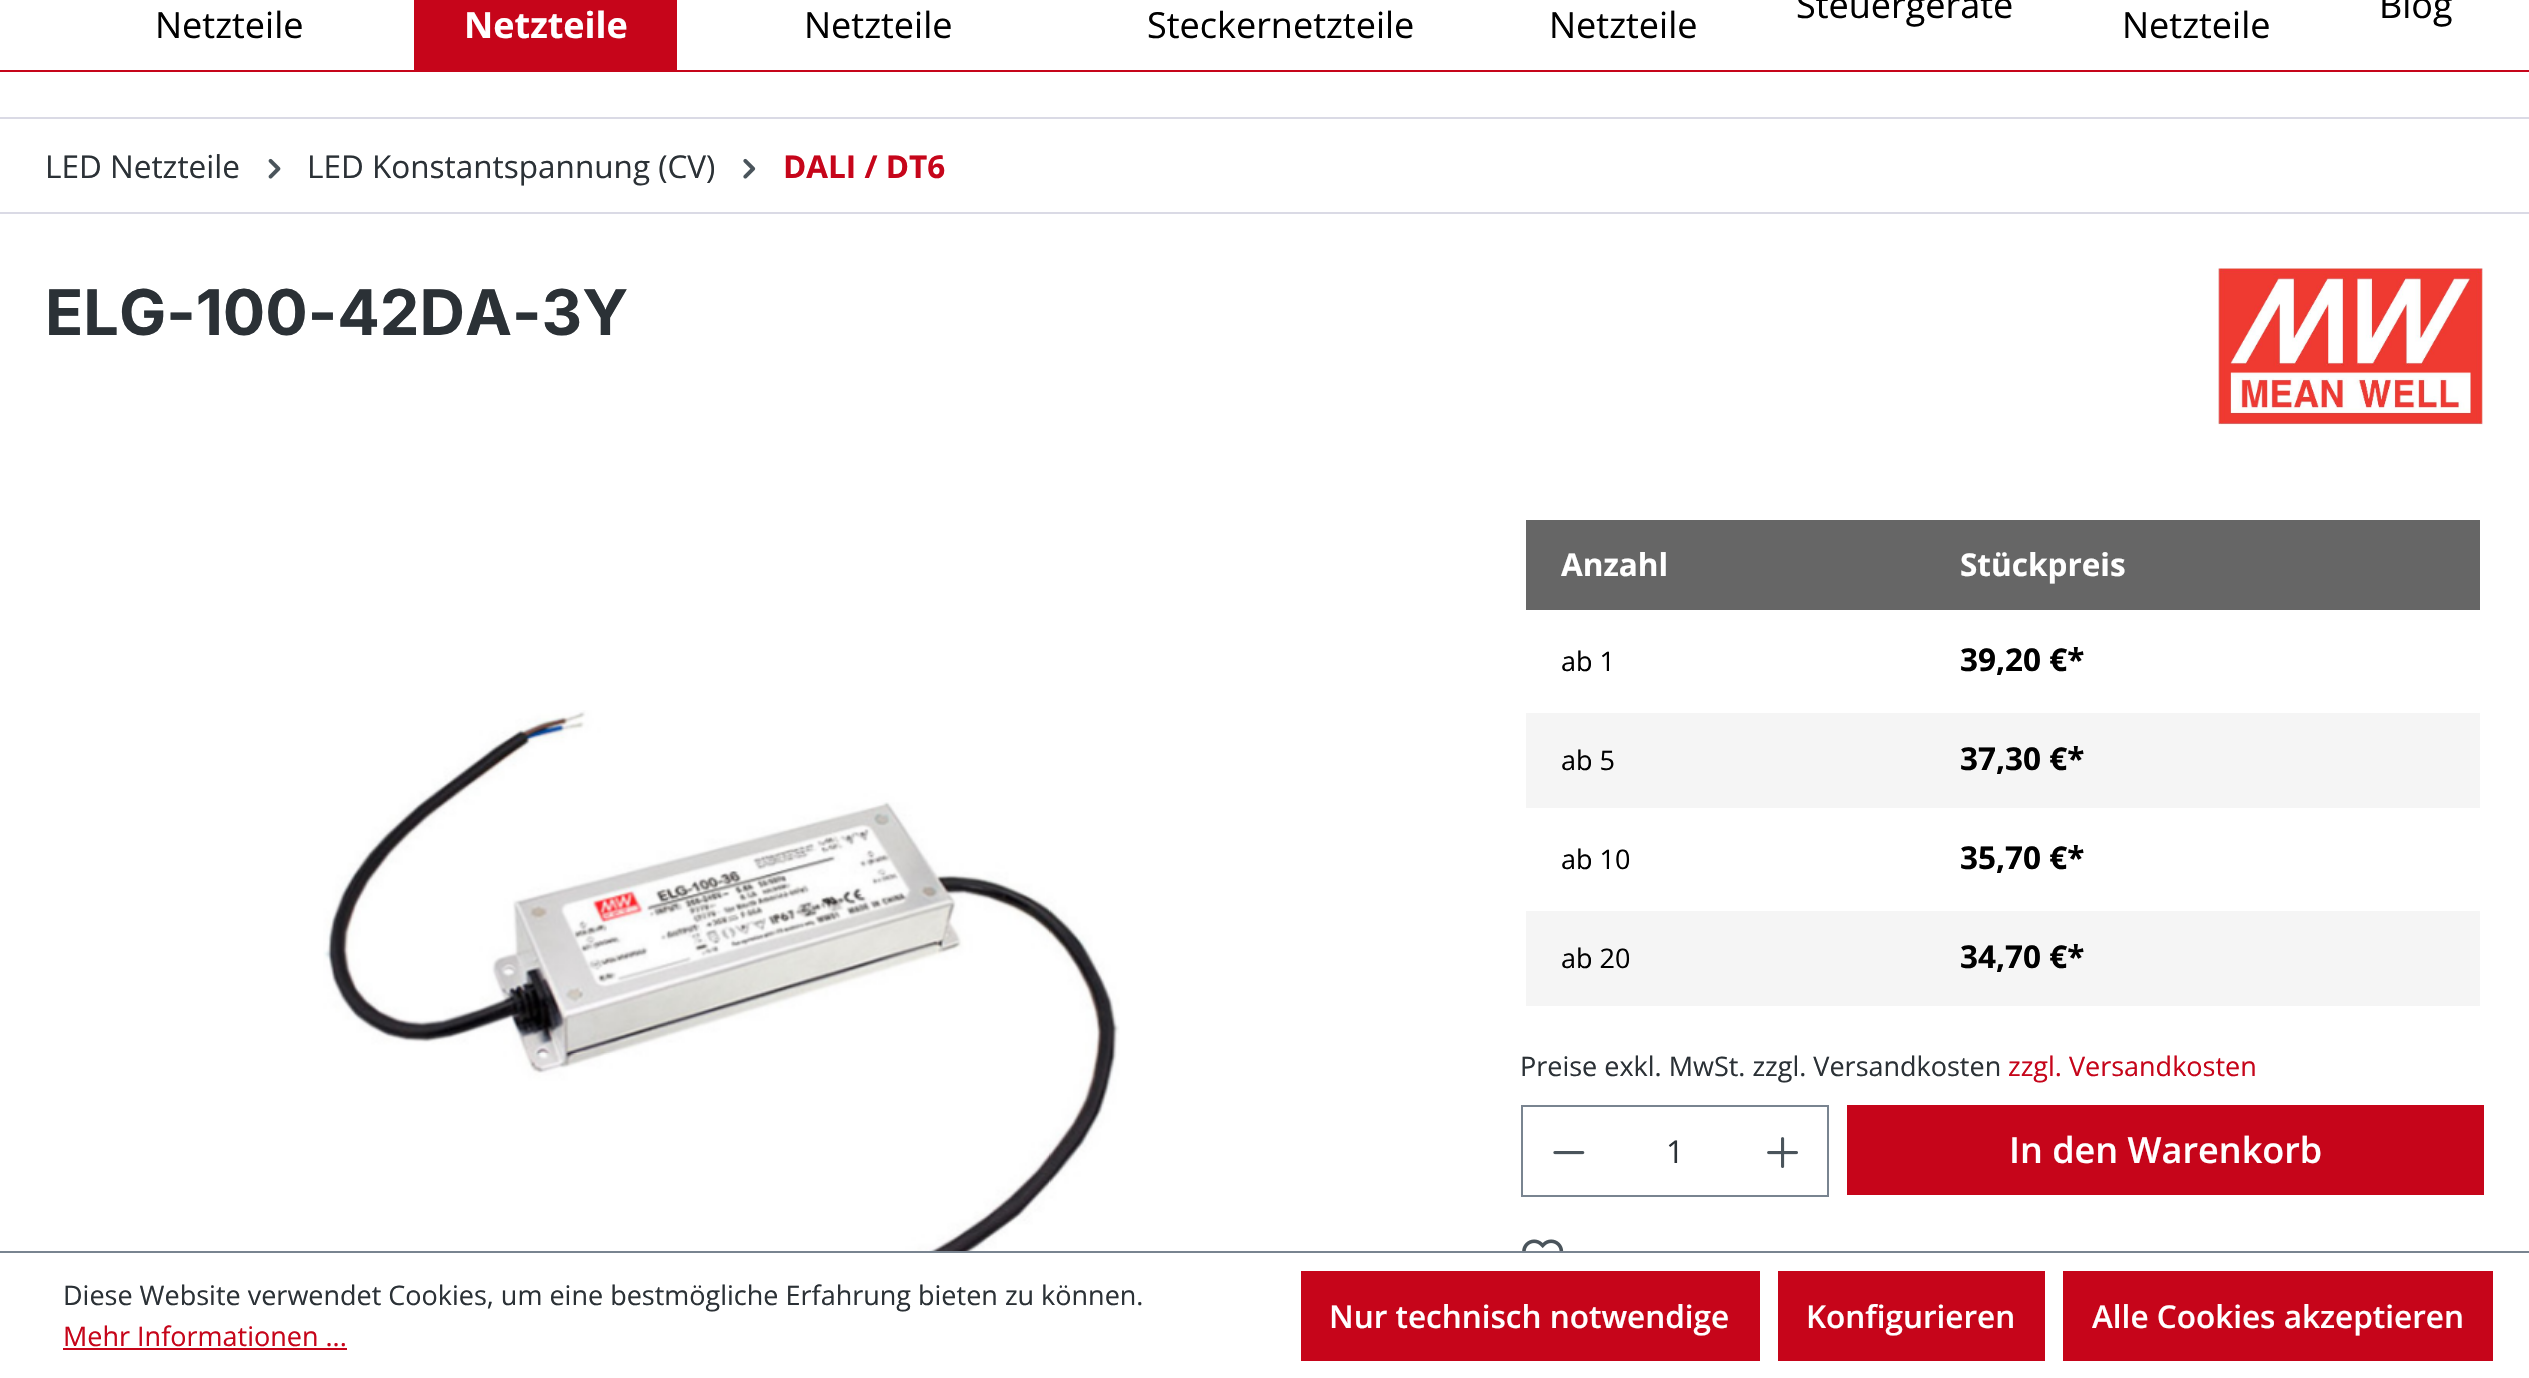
void draw(SkCanvas* canvas) {
    SkPaint paint;
    paint.setAntiAlias(true);
    canvas->clear(0xFFFFFFFF);
    paint.setColor(0xFFC6051A);
    canvas->drawRect(SkRect::MakeXYWH(0, 70, 2529, 2), paint);
    SkFont font1(fontMgr->matchFamilyStyle("Open Sans", SkFontStyle::Normal()), 36);
    font1.setSubpixel(true);
    paint.setColor(0xFF000000);
    canvas->drawString("Netzteile", 155, 38, font1, paint);
    paint.setColor(0xFFC6051A);
    canvas->drawRect(SkRect::MakeXYWH(414, 0, 263, 70), paint);
    SkFont font2(fontMgr->matchFamilyStyle("Open Sans", SkFontStyle::Bold()), 36);
    font2.setSubpixel(true);
    paint.setColor(0xFFFFFFFF);
    canvas->drawString("Netzteile", 464, 38, font2, paint);
    paint.setColor(0xFF000000);
    canvas->drawString("Netzteile", 804, 38, font1, paint);
    canvas->drawString("Steckernetzteile", 1147, 38, font1, paint);
    canvas->drawString("Netzteile", 1549, 38, font1, paint);
    canvas->drawString("Steuergeräte", 1796, 18, font1, paint);
    canvas->drawString("Netzteile", 2122, 38, font1, paint);
    canvas->drawString("Blog", 2379, 18, font1, paint);
    paint.setColor(0xFFDADAE5);
    canvas->drawRect(SkRect::MakeXYWH(0, 117, 2529, 2), paint);
    canvas->drawRect(SkRect::MakeXYWH(0, 212, 2529, 2), paint);
    SkFont font3(fontMgr->matchFamilyStyle("Open Sans", SkFontStyle::Normal()), 31.5f);
    font3.setSubpixel(true);
    paint.setColor(0xFF2B3136);
    canvas->drawString("LED Netzteile", 45, 178, font3, paint);
    canvas->drawImageRect(SkImages::DeferredFromEncodedData(SkData::MakeFromFileName("img1.png")), SkRect::MakeXYWH(268, 158, 13, 21), SkSamplingOptions());
    canvas->drawString("LED Konstantspannung (CV)", 307, 178, font3, paint);
    canvas->drawImageRect(SkImages::DeferredFromEncodedData(SkData::MakeFromFileName("img2.png")), SkRect::MakeXYWH(743, 158, 13, 21), SkSamplingOptions());
    SkFont font4(fontMgr->matchFamilyStyle("Open Sans", SkFontStyle::Bold()), 31.5f);
    font4.setSubpixel(true);
    paint.setColor(0xFFC6051A);
    canvas->drawString("DALI / DT6", 783, 178, font4, paint);
    SkFont font5(fontMgr->matchFamilyStyle("Inter", SkFontStyle::Bold()), 63);
    font5.setSubpixel(true);
    paint.setColor(0xFF2B3136);
    canvas->drawString("ELG-100-42DA-3Y", 45, 335, font5, paint);
    canvas->drawImageRect(SkImages::DeferredFromEncodedData(SkData::MakeFromFileName("img3.png")), SkRect::MakeXYWH(2218, 268, 265, 157), SkSamplingOptions());
    canvas->drawImageRect(SkImages::DeferredFromEncodedData(SkData::MakeFromFileName("img4.png")), SkRect::MakeXYWH(323, 710, 797, 541), SkSamplingOptions());
    paint.setColor(0xFF666666);
    canvas->drawRect(SkRect::MakeXYWH(1526, 520, 954, 90), paint);
    paint.setColor(0xFFFFFFFF);
    canvas->drawString("Anzahl", 1561, 576, font4, paint);
    canvas->drawString("Stückpreis", 1960, 576, font4, paint);
    SkFont font6(fontMgr->matchFamilyStyle("Open Sans", SkFontStyle::Normal()), 27);
    font6.setSubpixel(true);
    paint.setColor(0xFF000000);
    canvas->drawString("ab 1", 1561, 671, font6, paint);
    canvas->drawString("39,20 €*", 1960, 671, font4, paint);
    paint.setColor(0xFFF5F5F5);
    canvas->drawRect(SkRect::MakeXYWH(1526, 713, 954, 95), paint);
    paint.setColor(0xFF000000);
    canvas->drawString("ab 5", 1561, 770, font6, paint);
    canvas->drawString("37,30 €*", 1960, 770, font4, paint);
    canvas->drawString("ab 10", 1561, 869, font6, paint);
    canvas->drawString("35,70 €*", 1960, 869, font4, paint);
    paint.setColor(0xFFF5F5F5);
    canvas->drawRect(SkRect::MakeXYWH(1526, 911, 954, 95), paint);
    paint.setColor(0xFF000000);
    canvas->drawString("ab 20", 1561, 968, font6, paint);
    canvas->drawString("34,70 €*", 1960, 968, font4, paint);
    paint.setColor(0xFF2B3136);
    canvas->drawString("Preise exkl. MwSt. zzgl. Versandkosten", 1520, 1076, font6, paint);
    paint.setColor(0xFFC6051A);
    canvas->drawString("zzgl. Versandkosten", 2008, 1076, font6, paint);
    paint.setColor(0xFF798490);
    canvas->drawRect(SkRect::MakeXYWH(1521, 1105, 308, 2), paint);
    canvas->drawRect(SkRect::MakeXYWH(1521, 1195, 218, 2), paint);
    canvas->drawRect(SkRect::MakeXYWH(1521, 1105, 2, 92), paint);
    canvas->drawImageRect(SkImages::DeferredFromEncodedData(SkData::MakeFromFileName("img5.png")), SkRect::MakeXYWH(1553, 1151, 32, 4), SkSamplingOptions());
    paint.setColor(0xFF2B3136);
    canvas->drawString("1", 1666, 1163, font3, paint);
    paint.setColor(0xFF798490);
    canvas->drawRect(SkRect::MakeXYWH(1827, 1105, 2, 92), paint);
    canvas->drawRect(SkRect::MakeXYWH(1737, 1195, 92, 2), paint);
    canvas->drawImageRect(SkImages::DeferredFromEncodedData(SkData::MakeFromFileName("img6.png")), SkRect::MakeXYWH(1767, 1137, 31, 31), SkSamplingOptions());
    paint.setColor(0xFFC6051A);
    canvas->drawRect(SkRect::MakeXYWH(1847, 1105, 637, 90), paint);
    SkFont font7(fontMgr->matchFamilyStyle("Open Sans", SkFontStyle(600, SkFontStyle::kNormal_Width, SkFontStyle::kUpright_Slant)), 36);
    font7.setSubpixel(true);
    paint.setColor(0xFFFFFFFF);
    canvas->drawString("In den Warenkorb", 2009, 1163, font7, paint);
    canvas->drawImageRect(SkImages::DeferredFromEncodedData(SkData::MakeFromFileName("img7.png")), SkRect::MakeXYWH(1522, 1239, 42, 12), SkSamplingOptions());
    paint.setColor(0xFF798490);
    canvas->drawRect(SkRect::MakeXYWH(0, 1251, 2529, 2), paint);
    paint.setColor(0xFF2B3136);
    canvas->drawString("Diese Website verwendet Cookies, um eine bestmögliche Erfahrung bieten zu können.", 63, 1305, font6, paint);
    paint.setColor(0xFFC6051A);
    canvas->drawString("Mehr Informationen ...", 63, 1346, font6, paint);
    canvas->drawRect(SkRect::MakeXYWH(63, 1348, 284, 2), paint);
    canvas->drawRect(SkRect::MakeXYWH(1301, 1271, 459, 90), paint);
    SkFont font8(fontMgr->matchFamilyStyle("Open Sans", SkFontStyle(600, SkFontStyle::kNormal_Width, SkFontStyle::kUpright_Slant)), 31.5f);
    font8.setSubpixel(true);
    paint.setColor(0xFFFFFFFF);
    canvas->drawString("Nur technisch notwendige", 1329, 1328, font8, paint);
    paint.setColor(0xFFC6051A);
    canvas->drawRect(SkRect::MakeXYWH(1778, 1271, 267, 90), paint);
    paint.setColor(0xFFFFFFFF);
    canvas->drawString("Konfigurieren", 1806, 1328, font8, paint);
    paint.setColor(0xFFC6051A);
    canvas->drawRect(SkRect::MakeXYWH(2063, 1271, 430, 90), paint);
    paint.setColor(0xFFFFFFFF);
    canvas->drawString("Alle Cookies akzeptieren", 2092, 1328, font8, paint);
}
